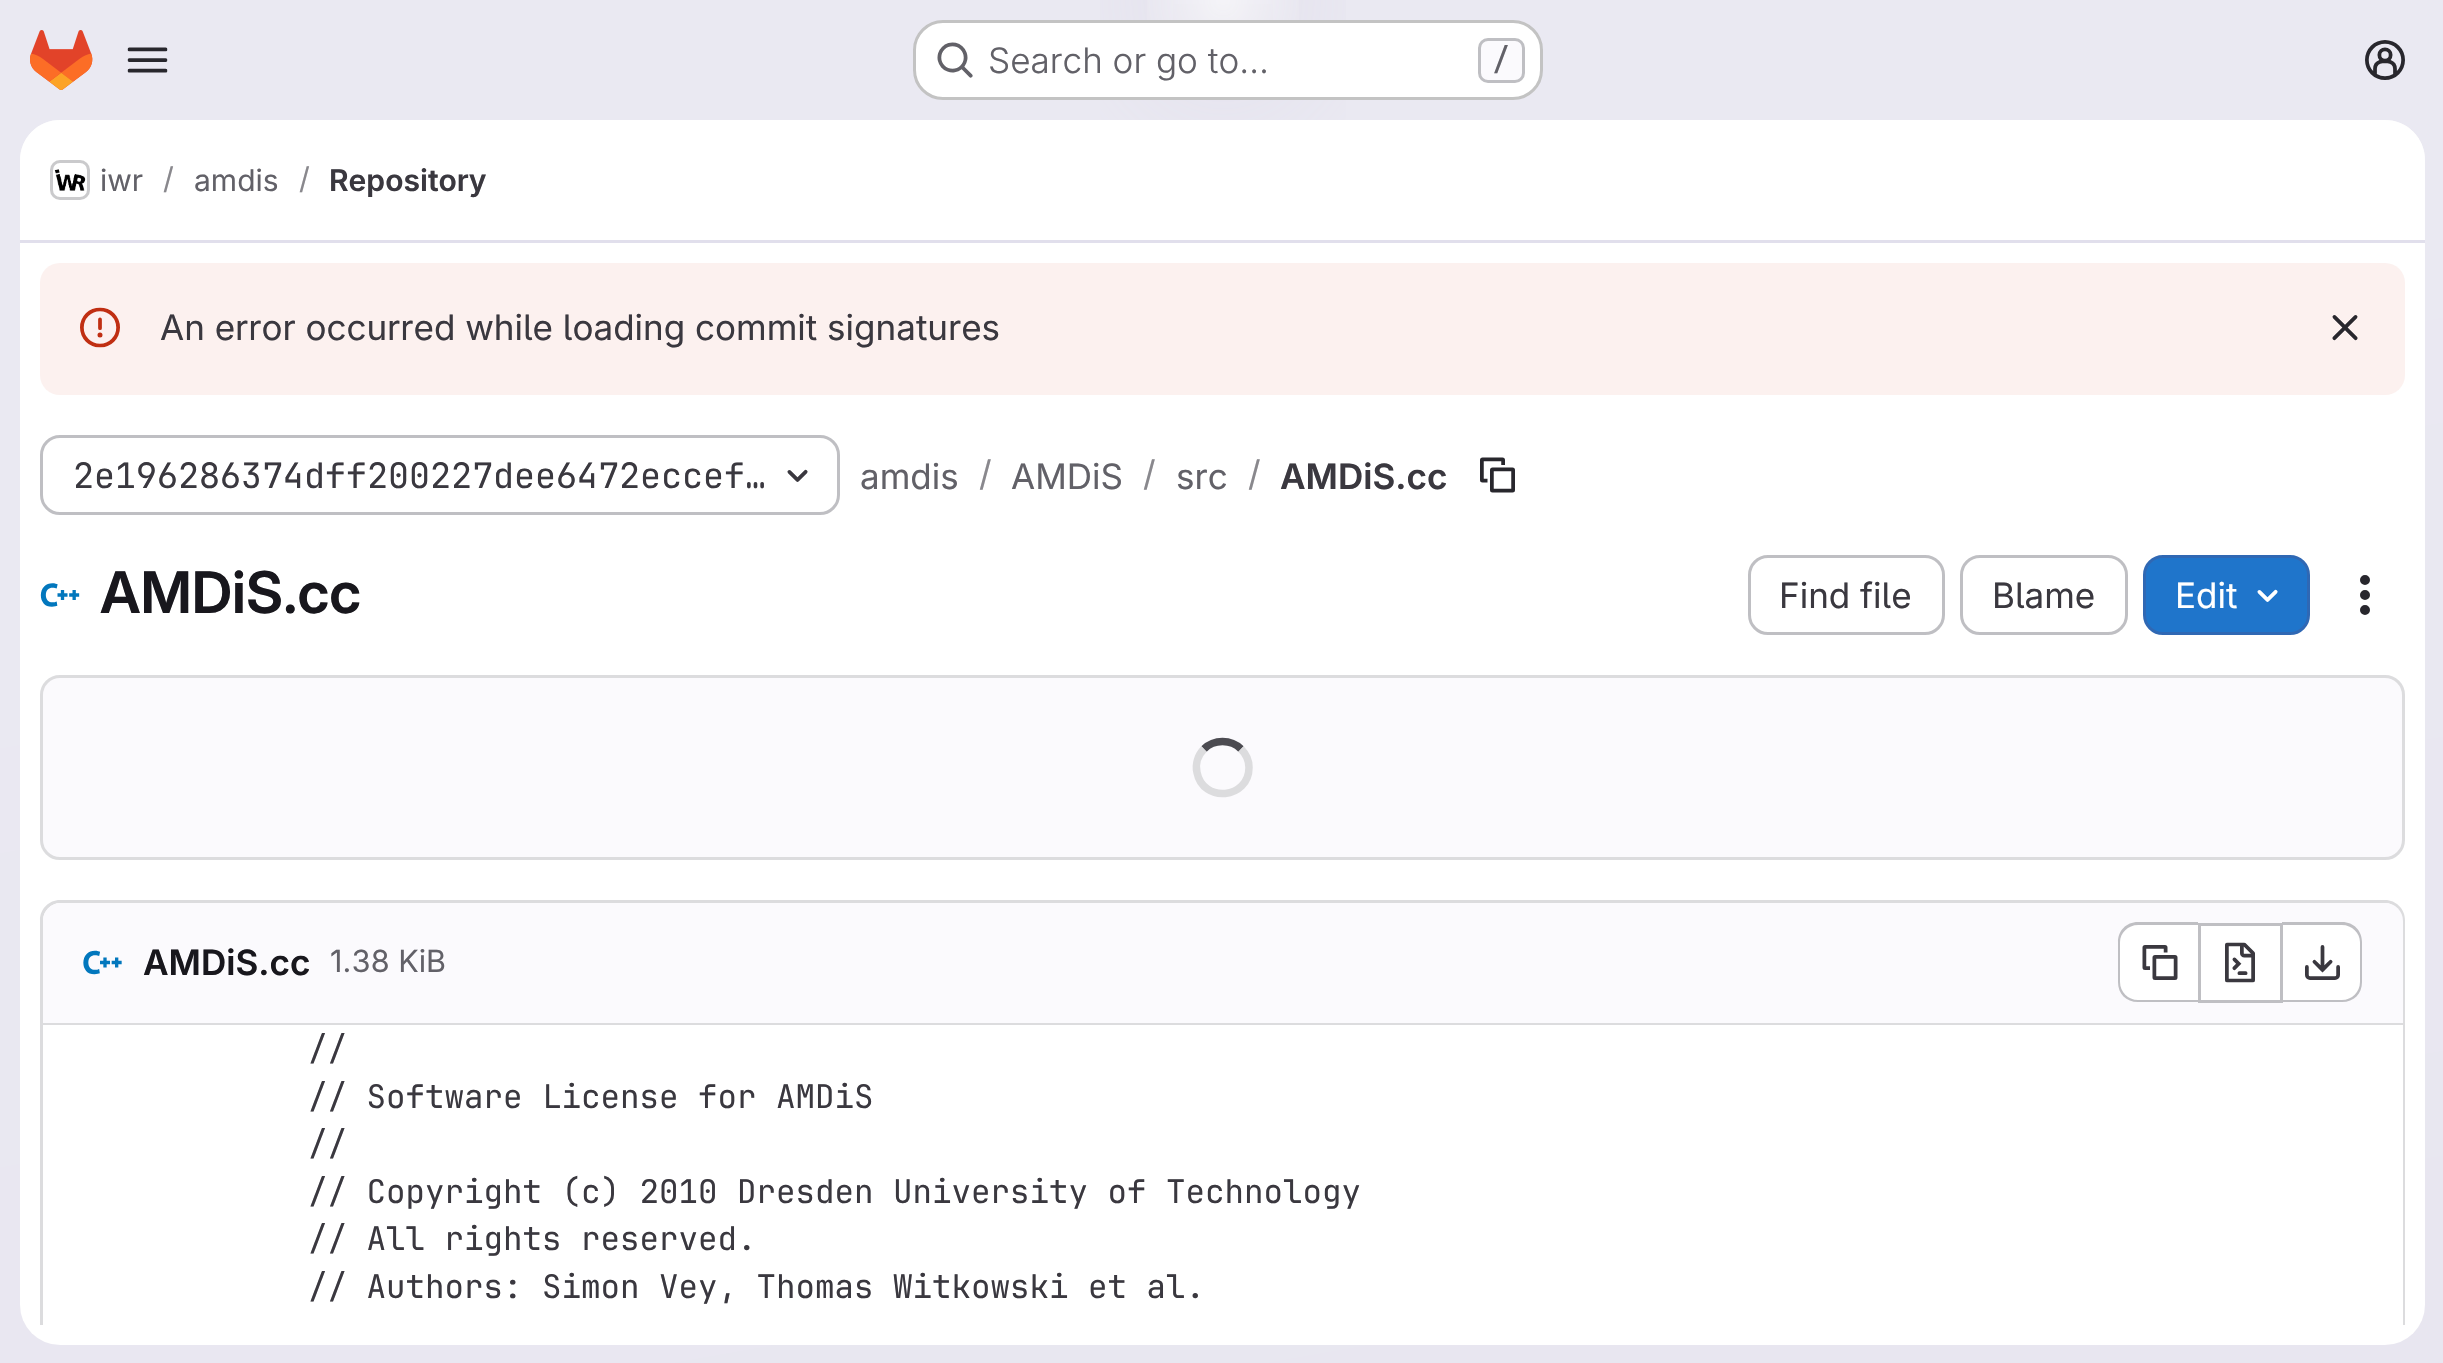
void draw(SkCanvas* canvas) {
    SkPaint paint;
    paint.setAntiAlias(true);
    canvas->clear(0xFFFFFFFF);
    {
        const SkColor colors[] = {0xFFE8E6F0, 0xFFEAE9F2};
        const float stops[] = {0, 0.7f};
        const SkPoint ends[] = {{1376, 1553}, {1069, -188}};
        paint.setShader(SkGradientShader::MakeLinear(ends, colors, stops, 2, SkTileMode::kClamp));
        paint.setAlpha(255);
    }
    canvas->drawRect(SkRect::MakeXYWH(0, 0, 2443, 1363), paint);
    {
        const SkColor colors[] = {0xFFE4E2ED, 0x00E4E2ED};
        const float stops[] = {0, 0.14f};
        SkMatrix m = SkMatrix::Translate(1223, 0).preScale(1223, 1365);
        paint.setShader(SkGradientShader::MakeRadial({0, 0}, 1, colors, stops, 2, SkTileMode::kClamp, 0, &m));
        paint.setAlpha(255);
    }
    canvas->drawRect(SkRect::MakeXYWH(1100, 0, 246, 120), paint);
    {
        const SkColor colors[] = {0xFFE4E2EC, 0x00E4E2EC};
        const float stops[] = {0, 0.1f};
        SkMatrix m = SkMatrix::Translate(1223, 0).preScale(1223, 1365);
        paint.setShader(SkGradientShader::MakeRadial({0, 0}, 1, colors, stops, 2, SkTileMode::kClamp, 0, &m));
        paint.setAlpha(255);
    }
    canvas->drawRect(SkRect::MakeXYWH(1173, 4, 100, 52), paint);
    {
        const SkColor colors[] = {0x99FFFFFF, 0x00FFFFFF};
        const float stops[] = {0, 0.05f};
        paint.setShader(SkGradientShader::MakeRadial({1223, 0}, 1832, colors, stops, 2, SkTileMode::kClamp));
        paint.setAlpha(255);
    }
    canvas->drawRect(SkRect::MakeXYWH(1147, 0, 152, 20), paint);
    canvas->drawImageRect(SkImages::DeferredFromEncodedData(SkData::MakeFromFileName("img1.png")), SkRect::MakeXYWH(30, 30, 63, 60), SkSamplingOptions());
    canvas->drawImageRect(SkImages::DeferredFromEncodedData(SkData::MakeFromFileName("img2.png")), SkRect::MakeXYWH(127, 47, 41, 26), SkSamplingOptions());
    paint.setShader(nullptr);
    paint.setColor(0xFFFFFFFF);
    canvas->drawRoundRect(SkRect::MakeXYWH(913, 20, 630, 80), 30, 30, paint);
    paint.setStyle(SkPaint::kStroke_Style);
    paint.setStrokeWidth(3);
    paint.setColor(0x3D050506);
    canvas->drawRoundRect(SkRect::MakeXYWH(914.5f, 21.5f, 627, 77), 28.5f, 28.5f, paint);
    canvas->drawImageRect(SkImages::DeferredFromEncodedData(SkData::MakeFromFileName("img3.png")), SkRect::MakeXYWH(937, 42, 36, 36), SkSamplingOptions());
    SkFont font1(fontMgr->matchFamilyStyle("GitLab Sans", SkFontStyle(300, SkFontStyle::kNormal_Width, SkFontStyle::kUpright_Slant)), 35);
    font1.setSubpixel(true);
    paint.setStyle(SkPaint::kFill_Style);
    paint.setColor(0xFF626168);
    canvas->drawString("Search or go to…", 988, 73, font1, paint);
    paint.setColor(0xFFFBFAFD);
    canvas->drawRoundRect(SkRect::MakeXYWH(1479.5f, 39.5f, 44, 42), 8.5f, 8.5f, paint);
    paint.setStyle(SkPaint::kStroke_Style);
    paint.setColor(0xFFBFBFC3);
    canvas->drawRoundRect(SkRect::MakeXYWH(1479.5f, 39.5f, 44, 42), 8.5f, 8.5f, paint);
    SkFont font2(fontMgr->matchFamilyStyle("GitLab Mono", SkFontStyle(500, SkFontStyle::kNormal_Width, SkFontStyle::kUpright_Slant)), 30);
    font2.setSubpixel(true);
    paint.setStyle(SkPaint::kFill_Style);
    paint.setColor(0xFF626168);
    canvas->drawString("/", 1492, 70, font2, paint);
    canvas->drawImageRect(SkImages::DeferredFromEncodedData(SkData::MakeFromFileName("img4.png")), SkRect::MakeXYWH(2365, 40, 40, 40), SkSamplingOptions());
    paint.setColor(0xFFFFFFFF);
    canvas->drawRoundRect(SkRect::MakeXYWH(20, 120, 2405, 1225), 40, 40, paint);
    canvas->drawPath(SkPathBuilder().moveTo(60, 120).lineTo(2385, 120).cubicTo(2407, 120, 2425, 138, 2425, 160).lineTo(2425, 243).lineTo(20, 243).lineTo(20, 160).cubicTo(20, 138, 38, 120, 60, 120).close().detach(), paint);
    paint.setColor(0xFFE1DFEC);
    canvas->drawRect(SkRect::MakeXYWH(20, 240, 2405, 3), paint);
    paint.setStyle(SkPaint::kStroke_Style);
    paint.setColor(0xFFDCDCDE);
    canvas->drawRoundRect(SkRect::MakeXYWH(51.5f, 161.5f, 37, 37), 8.5f, 8.5f, paint);
    canvas->drawImageRect(SkImages::DeferredFromEncodedData(SkData::MakeFromFileName("img5.png")), SkRect::MakeXYWH(54, 169, 32, 22), SkSamplingOptions());
    paint.setColor(0x14050506);
    canvas->drawRoundRect(SkRect::MakeXYWH(51.5f, 161.5f, 37, 37), 8.5f, 8.5f, paint);
    SkFont font3(fontMgr->matchFamilyStyle("GitLab Sans", SkFontStyle::Normal()), 30);
    font3.setSubpixel(true);
    paint.setStyle(SkPaint::kFill_Style);
    paint.setColor(0xFF626168);
    canvas->drawString("iwr", 100, 191, font3, paint);
    paint.setColor(0xFF89888D);
    canvas->drawString("/", 163, 189, font3, paint);
    paint.setColor(0xFF626168);
    canvas->drawString("amdis", 194, 191, font3, paint);
    paint.setColor(0xFF89888D);
    canvas->drawString("/", 299, 189, font3, paint);
    SkFont font4(fontMgr->matchFamilyStyle("GitLab Sans", SkFontStyle(600, SkFontStyle::kNormal_Width, SkFontStyle::kUpright_Slant)), 30);
    font4.setSubpixel(true);
    paint.setColor(0xFF3A383F);
    canvas->drawString("Repository", 329, 191, font4, paint);
    paint.setColor(0xFFFCF1EF);
    canvas->drawRoundRect(SkRect::MakeXYWH(40, 263, 2365, 132), 20, 20, paint);
    canvas->drawImageRect(SkImages::DeferredFromEncodedData(SkData::MakeFromFileName("img6.png")), SkRect::MakeXYWH(80, 307, 40, 41), SkSamplingOptions());
    SkFont font5(fontMgr->matchFamilyStyle("GitLab Sans", SkFontStyle::Normal()), 35);
    font5.setSubpixel(true);
    paint.setColor(0xFF3A383F);
    canvas->drawString("An error occurred while loading commit signatures", 160, 340, font5, paint);
    canvas->drawImageRect(SkImages::DeferredFromEncodedData(SkData::MakeFromFileName("img7.png")), SkRect::MakeXYWH(2332, 315, 26, 26), SkSamplingOptions());
    paint.setStyle(SkPaint::kStroke_Style);
    paint.setColor(0xFFBFBFC3);
    canvas->drawRoundRect(SkRect::MakeXYWH(41.5f, 436.5f, 797, 77), 18.5f, 18.5f, paint);
    SkFont font6(fontMgr->matchFamilyStyle("GitLab Mono", SkFontStyle::Normal()), 35);
    font6.setSubpixel(true);
    paint.setStyle(SkPaint::kFill_Style);
    paint.setColor(0xFF3A383F);
    canvas->drawString("2e196286374dff200227dee6472eccef…", 73, 488, font6, paint);
    canvas->drawImageRect(SkImages::DeferredFromEncodedData(SkData::MakeFromFileName("img8.png")), SkRect::MakeXYWH(787, 469, 21, 13), SkSamplingOptions());
    paint.setColor(0xFF626168);
    canvas->drawString("amdis", 860, 489, font5, paint);
    paint.setColor(0xFF89888D);
    canvas->drawString("/", 979, 486, font5, paint);
    paint.setColor(0xFF626168);
    canvas->drawString("AMDiS", 1011, 489, font5, paint);
    paint.setColor(0xFF89888D);
    canvas->drawString("/", 1143, 486, font5, paint);
    paint.setColor(0xFF626168);
    canvas->drawString("src", 1176, 489, font5, paint);
    paint.setColor(0xFF89888D);
    canvas->drawString("/", 1248, 486, font5, paint);
    SkFont font7(fontMgr->matchFamilyStyle("GitLab Sans", SkFontStyle(600, SkFontStyle::kNormal_Width, SkFontStyle::kUpright_Slant)), 35);
    font7.setSubpixel(true);
    paint.setColor(0xFF3A383F);
    canvas->drawString("AMDiS.cc", 1280, 489, font7, paint);
    canvas->drawImageRect(SkImages::DeferredFromEncodedData(SkData::MakeFromFileName("img9.png")), SkRect::MakeXYWH(1480, 457, 35, 36), SkSamplingOptions());
    canvas->drawImageRect(SkImages::DeferredFromEncodedData(SkData::MakeFromFileName("img10.png")), SkRect::MakeXYWH(40, 583, 40, 24), SkSamplingOptions());
    SkFont font8(fontMgr->matchFamilyStyle("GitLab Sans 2", SkFontStyle(600, SkFontStyle::kNormal_Width, SkFontStyle::kUpright_Slant)), 57.5f);
    font8.setSubpixel(true);
    paint.setColor(0xFF18171D);
    canvas->drawString("AMDiS.cc", 100, 613, font8, paint);
    paint.setStyle(SkPaint::kStroke_Style);
    paint.setColor(0xFFBFBFC3);
    canvas->drawRoundRect(SkRect::MakeXYWH(1749.5f, 556.5f, 194, 77), 18.5f, 18.5f, paint);
    paint.setStyle(SkPaint::kFill_Style);
    paint.setColor(0xFF3A383F);
    canvas->drawString("Find file", 1779, 608, font5, paint);
    paint.setStyle(SkPaint::kStroke_Style);
    paint.setColor(0xFFBFBFC3);
    canvas->drawRoundRect(SkRect::MakeXYWH(1961.5f, 556.5f, 165, 77), 18.5f, 18.5f, paint);
    paint.setStyle(SkPaint::kFill_Style);
    paint.setColor(0xFF3A383F);
    canvas->drawString("Blame", 1992, 608, font5, paint);
    paint.setColor(0xFF1F75CB);
    canvas->drawRoundRect(SkRect::MakeXYWH(2144.5f, 556.5f, 164, 77), 18.5f, 18.5f, paint);
    paint.setStyle(SkPaint::kStroke_Style);
    paint.setColor(0xFF2F68B4);
    canvas->drawRoundRect(SkRect::MakeXYWH(2144.5f, 556.5f, 164, 77), 18.5f, 18.5f, paint);
    paint.setStyle(SkPaint::kFill_Style);
    paint.setColor(0xFFFFFFFF);
    canvas->drawString("Edit", 2175, 608, font5, paint);
    canvas->drawImageRect(SkImages::DeferredFromEncodedData(SkData::MakeFromFileName("img11.png")), SkRect::MakeXYWH(2257, 589, 21, 13), SkSamplingOptions());
    canvas->drawImageRect(SkImages::DeferredFromEncodedData(SkData::MakeFromFileName("img12.png")), SkRect::MakeXYWH(2360, 575, 10, 40), SkSamplingOptions());
    paint.setColor(0xFFFBFAFD);
    canvas->drawRoundRect(SkRect::MakeXYWH(41.5f, 676.5f, 2362, 182), 18.5f, 18.5f, paint);
    paint.setStyle(SkPaint::kStroke_Style);
    paint.setColor(0xFFDCDCDE);
    canvas->drawRoundRect(SkRect::MakeXYWH(41.5f, 676.5f, 2362, 182), 18.5f, 18.5f, paint);
    paint.setStrokeWidth(7.5f);
    paint.setColor(0xFF4C4B51);
    canvas->drawPath(SkPathBuilder().moveTo(1204, 749).cubicTo(1214, 739, 1231, 739, 1241, 749).detach(), paint);
    paint.setColor(0xFFDCDCDE);
    canvas->drawPath(SkPathBuilder().moveTo(1241, 749).cubicTo(1246, 754, 1249, 760.5f, 1249, 767.5f).cubicTo(1249, 799, 1203, 803.5f, 1197, 772.5f).cubicTo(1195, 764, 1198, 755, 1204, 749).detach(), paint);
    canvas->save();
    canvas->clipRect(SkRect::MakeXYWH(20, 243, 2405, 1082));
    paint.setStyle(SkPaint::kFill_Style);
    canvas->drawPath(SkPathBuilder().moveTo(60, 900).cubicTo(49, 900, 40, 909, 40, 920).lineTo(40, 1340).lineTo(43, 1341).lineTo(43, 920).cubicTo(43, 911, 51, 903, 60, 903).lineTo(2385, 903).cubicTo(2394, 903, 2402, 911, 2402, 920).lineTo(2402, 1341).lineTo(2405, 1340).lineTo(2405, 920).cubicTo(2405, 909, 2396, 900, 2385, 900).close().detach(), paint);
    canvas->restore();
    paint.setColor(0xFFFBFAFD);
    canvas->drawPath(SkPathBuilder().moveTo(61, 903).lineTo(2385, 903).cubicTo(2395, 903, 2403, 911, 2403, 921).lineTo(2403, 1025).lineTo(43, 1025).lineTo(43, 921).cubicTo(43, 911, 51, 903, 61, 903).close().detach(), paint);
    paint.setColor(0xFFDCDCDE);
    canvas->drawRect(SkRect::MakeXYWH(43, 1023, 2360, 2), paint);
    canvas->drawImageRect(SkImages::DeferredFromEncodedData(SkData::MakeFromFileName("img13.png")), SkRect::MakeXYWH(83, 950, 39, 25), SkSamplingOptions());
    paint.setColor(0xFF18171D);
    canvas->drawString("AMDiS.cc", 143, 975, font7, paint);
    SkFont font9(fontMgr->matchFamilyStyle("GitLab Sans", SkFontStyle::Normal()), 30.5f);
    font9.setSubpixel(true);
    paint.setColor(0xFF626168);
    canvas->drawString("1.38 KiB", 330, 972, font9, paint);
    paint.setColor(0xFFFFFFFF);
    canvas->drawPath(SkPathBuilder().moveTo(2138, 925).lineTo(2198, 925).lineTo(2198, 1000).lineTo(2138, 1000).cubicTo(2128, 1000, 2120, 992, 2120, 982).lineTo(2120, 943).cubicTo(2120, 933, 2128, 925, 2138, 925).close().detach(), paint);
    paint.setColor(0xFFBFBFC3);
    canvas->drawPath(SkPathBuilder(SkPathFillType::kEvenOdd).moveTo(2138, 922).lineTo(2198, 922).lineTo(2198, 1002).lineTo(2138, 1002).cubicTo(2126, 1002, 2118, 994, 2118, 982).lineTo(2118, 942).cubicTo(2118, 931, 2126, 922, 2138, 922).close().moveTo(2138, 925).lineTo(2198, 925).lineTo(2198, 1000).lineTo(2138, 1000).cubicTo(2128, 1000, 2120, 992, 2120, 982).lineTo(2120, 942).cubicTo(2120, 933, 2128, 925, 2138, 925).close().detach(), paint);
    canvas->drawImageRect(SkImages::DeferredFromEncodedData(SkData::MakeFromFileName("img14.png")), SkRect::MakeXYWH(2142, 945, 36, 35), SkSamplingOptions());
    paint.setColor(0xFFFFFFFF);
    canvas->drawRect(SkRect::MakeXYWH(2201, 926, 79, 74), paint);
    paint.setColor(0xFFBFBFC3);
    canvas->drawRect(SkRect::MakeXYWH(2200, 923, 80, 3), paint);
    canvas->drawRect(SkRect::MakeXYWH(2200, 1000, 80, 3), paint);
    canvas->drawRect(SkRect::MakeXYWH(2198, 923, 3, 80), paint);
    canvas->drawImageRect(SkImages::DeferredFromEncodedData(SkData::MakeFromFileName("img15.png")), SkRect::MakeXYWH(2225, 942, 30, 41), SkSamplingOptions());
    paint.setColor(0xFFFFFFFF);
    canvas->drawPath(SkPathBuilder().moveTo(2283, 925).lineTo(2342, 925).cubicTo(2352, 925, 2360, 933, 2360, 943).lineTo(2360, 982).cubicTo(2360, 992, 2352, 1000, 2342, 1000).lineTo(2283, 1000).close().detach(), paint);
    paint.setColor(0xFFBFBFC3);
    canvas->drawPath(SkPathBuilder(SkPathFillType::kEvenOdd).moveTo(2282, 922).lineTo(2342, 922).cubicTo(2354, 922, 2362, 931, 2362, 942).lineTo(2362, 982).cubicTo(2362, 994, 2354, 1002, 2342, 1002).lineTo(2282, 1002).close().moveTo(2282, 925).lineTo(2342, 925).cubicTo(2352, 925, 2360, 933, 2360, 942).lineTo(2360, 982).cubicTo(2360, 992, 2352, 1000, 2342, 1000).lineTo(2282, 1000).close().detach(), paint);
    canvas->drawRect(SkRect::MakeXYWH(2280, 923, 3, 80), paint);
    canvas->drawImageRect(SkImages::DeferredFromEncodedData(SkData::MakeFromFileName("img16.png")), SkRect::MakeXYWH(2305, 945, 35, 35), SkSamplingOptions());
    paint.setColor(0xFFFFFFFF);
    canvas->drawRect(SkRect::MakeXYWH(2402, 1025, 1, 300), paint);
    SkFont font10(fontMgr->matchFamilyStyle("GitLab Mono", SkFontStyle::Normal()), 32.5f);
    font10.setSubpixel(true);
    paint.setColor(0xFF3A383F);
    canvas->drawString("//", 308, 1060, font10, paint);
    canvas->drawString("// Software License for AMDiS", 308, 1108, font10, paint);
    canvas->drawString("//", 308, 1155, font10, paint);
    canvas->drawString("// Copyright (c) 2010 Dresden University of Technology", 308, 1203, font10, paint);
    canvas->drawString("// All rights reserved.", 308, 1250, font10, paint);
    canvas->drawString("// Authors: Simon Vey, Thomas Witkowski et al.", 308, 1298, font10, paint);
}
